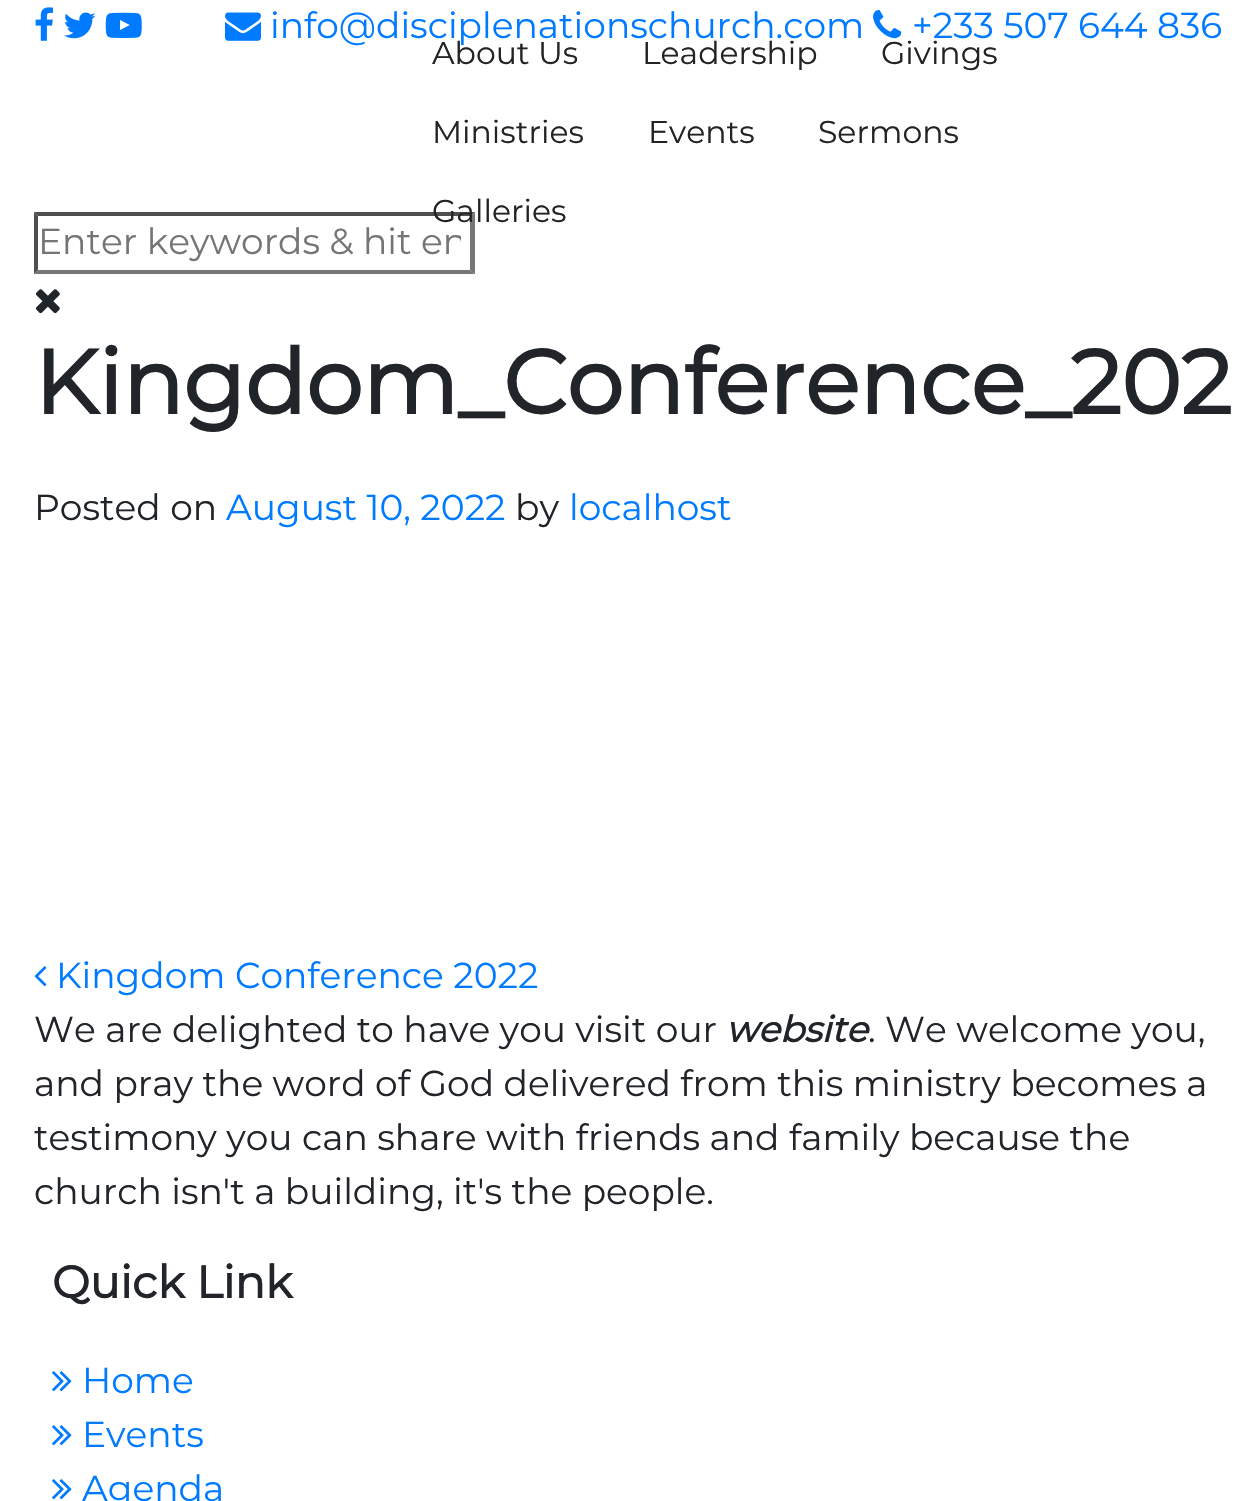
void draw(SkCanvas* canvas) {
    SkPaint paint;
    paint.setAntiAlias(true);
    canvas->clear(0xFFFFFFFF);
    canvas->drawImageRect(SkImages::DeferredFromEncodedData(SkData::MakeFromFileName("img1.png")), SkRect::MakeXYWH(35, 7, 18, 34), SkSamplingOptions());
    canvas->drawImageRect(SkImages::DeferredFromEncodedData(SkData::MakeFromFileName("img2.png")), SkRect::MakeXYWH(64, 12, 32, 27), SkSamplingOptions());
    canvas->drawImageRect(SkImages::DeferredFromEncodedData(SkData::MakeFromFileName("img3.png")), SkRect::MakeXYWH(105, 12, 37, 27), SkSamplingOptions());
    canvas->drawImageRect(SkImages::DeferredFromEncodedData(SkData::MakeFromFileName("img4.png")), SkRect::MakeXYWH(225, 12, 36, 29), SkSamplingOptions());
    SkFont font1(fontMgr->matchFamilyStyle("Montserrat", SkFontStyle(100, SkFontStyle::kNormal_Width, SkFontStyle::kUpright_Slant)), 36);
    font1.setSubpixel(true);
    paint.setColor(0xFF007BFF);
    canvas->drawString("info@disciplenationschurch.com", 270, 38, font1, paint);
    canvas->drawImageRect(SkImages::DeferredFromEncodedData(SkData::MakeFromFileName("img5.png")), SkRect::MakeXYWH(873, 10, 29, 29), SkSamplingOptions());
    canvas->drawString("+233 507 644 836", 912, 38, font1, paint);
    SkFont font2(fontMgr->matchFamilyStyle("Montserrat", SkFontStyle(100, SkFontStyle::kNormal_Width, SkFontStyle::kUpright_Slant)), 31.5f);
    font2.setSubpixel(true);
    paint.setColor(0xFF232323);
    canvas->drawString("About Us", 432, 64, font2, paint);
    canvas->drawString("Leadership", 642, 64, font2, paint);
    canvas->drawString("Givings", 881, 64, font2, paint);
    canvas->drawString("Ministries", 432, 143, font2, paint);
    canvas->drawString("Events", 648, 143, font2, paint);
    canvas->drawString("Sermons", 818, 143, font2, paint);
    paint.setColor(0xFF4F4F4F);
    canvas->drawPath(SkPathBuilder().moveTo(34, 212).lineTo(475, 212).lineTo(470, 216).lineTo(38, 216).close().detach(), paint);
    paint.setColor(0xFF767676);
    canvas->drawPath(SkPathBuilder().moveTo(475, 212).lineTo(475, 274).lineTo(470, 270).lineTo(470, 216).close().detach(), paint);
    paint.setColor(0xFF232323);
    canvas->drawString("Galleries", 432, 222, font2, paint);
    paint.setColor(0xFF767676);
    canvas->drawPath(SkPathBuilder().moveTo(475, 274).lineTo(34, 274).lineTo(38, 270).lineTo(470, 270).close().detach(), paint);
    paint.setColor(0xFF4F4F4F);
    canvas->drawPath(SkPathBuilder().moveTo(34, 274).lineTo(34, 212).lineTo(38, 216).lineTo(38, 270).close().detach(), paint);
    canvas->save();
    canvas->clipRect(SkRect::MakeXYWH(38, 221, 423, 42));
    paint.setColor(0xFF757575);
    canvas->drawString("Enter keywords & hit en", 38, 254, font1, paint);
    canvas->restore();
    canvas->drawImageRect(SkImages::DeferredFromEncodedData(SkData::MakeFromFileName("img6.png")), SkRect::MakeXYWH(36, 289, 24, 25), SkSamplingOptions());
    SkFont font3(fontMgr->matchFamilyStyle("Montserrat", SkFontStyle::Bold()), 90);
    font3.setSubpixel(true);
    paint.setColor(0xFF212529);
    canvas->drawString("Kingdom_Conference_202", 34, 414, font3, paint);
    canvas->drawString("Posted on", 34, 520, font1, paint);
    paint.setColor(0xFF007BFF);
    canvas->drawString("August 10, 2022", 226, 520, font1, paint);
    paint.setColor(0xFF212529);
    canvas->drawString("by", 515, 520, font1, paint);
    paint.setColor(0xFF007BFF);
    canvas->drawString("localhost", 569, 520, font1, paint);
    canvas->drawImageRect(SkImages::DeferredFromEncodedData(SkData::MakeFromFileName("img7.png")), SkRect::MakeXYWH(34, 966, 13, 21), SkSamplingOptions());
    canvas->drawString("Kingdom Conference 2022", 56, 988, font1, paint);
    paint.setColor(0xFF212529);
    canvas->drawString("We are delighted to have you visit our", 34, 1042, font1, paint);
    SkFont font4(fontMgr->matchFamilyStyle("Montserrat", SkFontStyle::BoldItalic()), 36);
    font4.setSubpixel(true);
    canvas->drawString("website", 726, 1042, font4, paint);
    canvas->drawString(". We welcome you,", 868, 1042, font1, paint);
    canvas->drawString("and pray the word of God delivered from this ministry becomes a", 34, 1096, font1, paint);
    canvas->drawString("testimony you can share with friends and family because the", 34, 1150, font1, paint);
    canvas->drawString("church isn't a building, it's the people.", 34, 1204, font1, paint);
    SkFont font5(fontMgr->matchFamilyStyle("Montserrat", SkFontStyle::Bold()), 45);
    font5.setSubpixel(true);
    canvas->drawString("Quick Link", 52, 1298, font5, paint);
    canvas->drawImageRect(SkImages::DeferredFromEncodedData(SkData::MakeFromFileName("img8.png")), SkRect::MakeXYWH(52, 1371, 20, 21), SkSamplingOptions());
    paint.setColor(0xFF007BFF);
    canvas->drawString("Home", 82, 1393, font1, paint);
    canvas->drawImageRect(SkImages::DeferredFromEncodedData(SkData::MakeFromFileName("img8.png")), SkRect::MakeXYWH(52, 1425, 20, 21), SkSamplingOptions());
    canvas->drawString("Events", 82, 1447, font1, paint);
    canvas->drawImageRect(SkImages::DeferredFromEncodedData(SkData::MakeFromFileName("img8.png")), SkRect::MakeXYWH(52, 1479, 20, 21), SkSamplingOptions());
    canvas->drawString("Agenda", 82, 1501, font1, paint);
}
